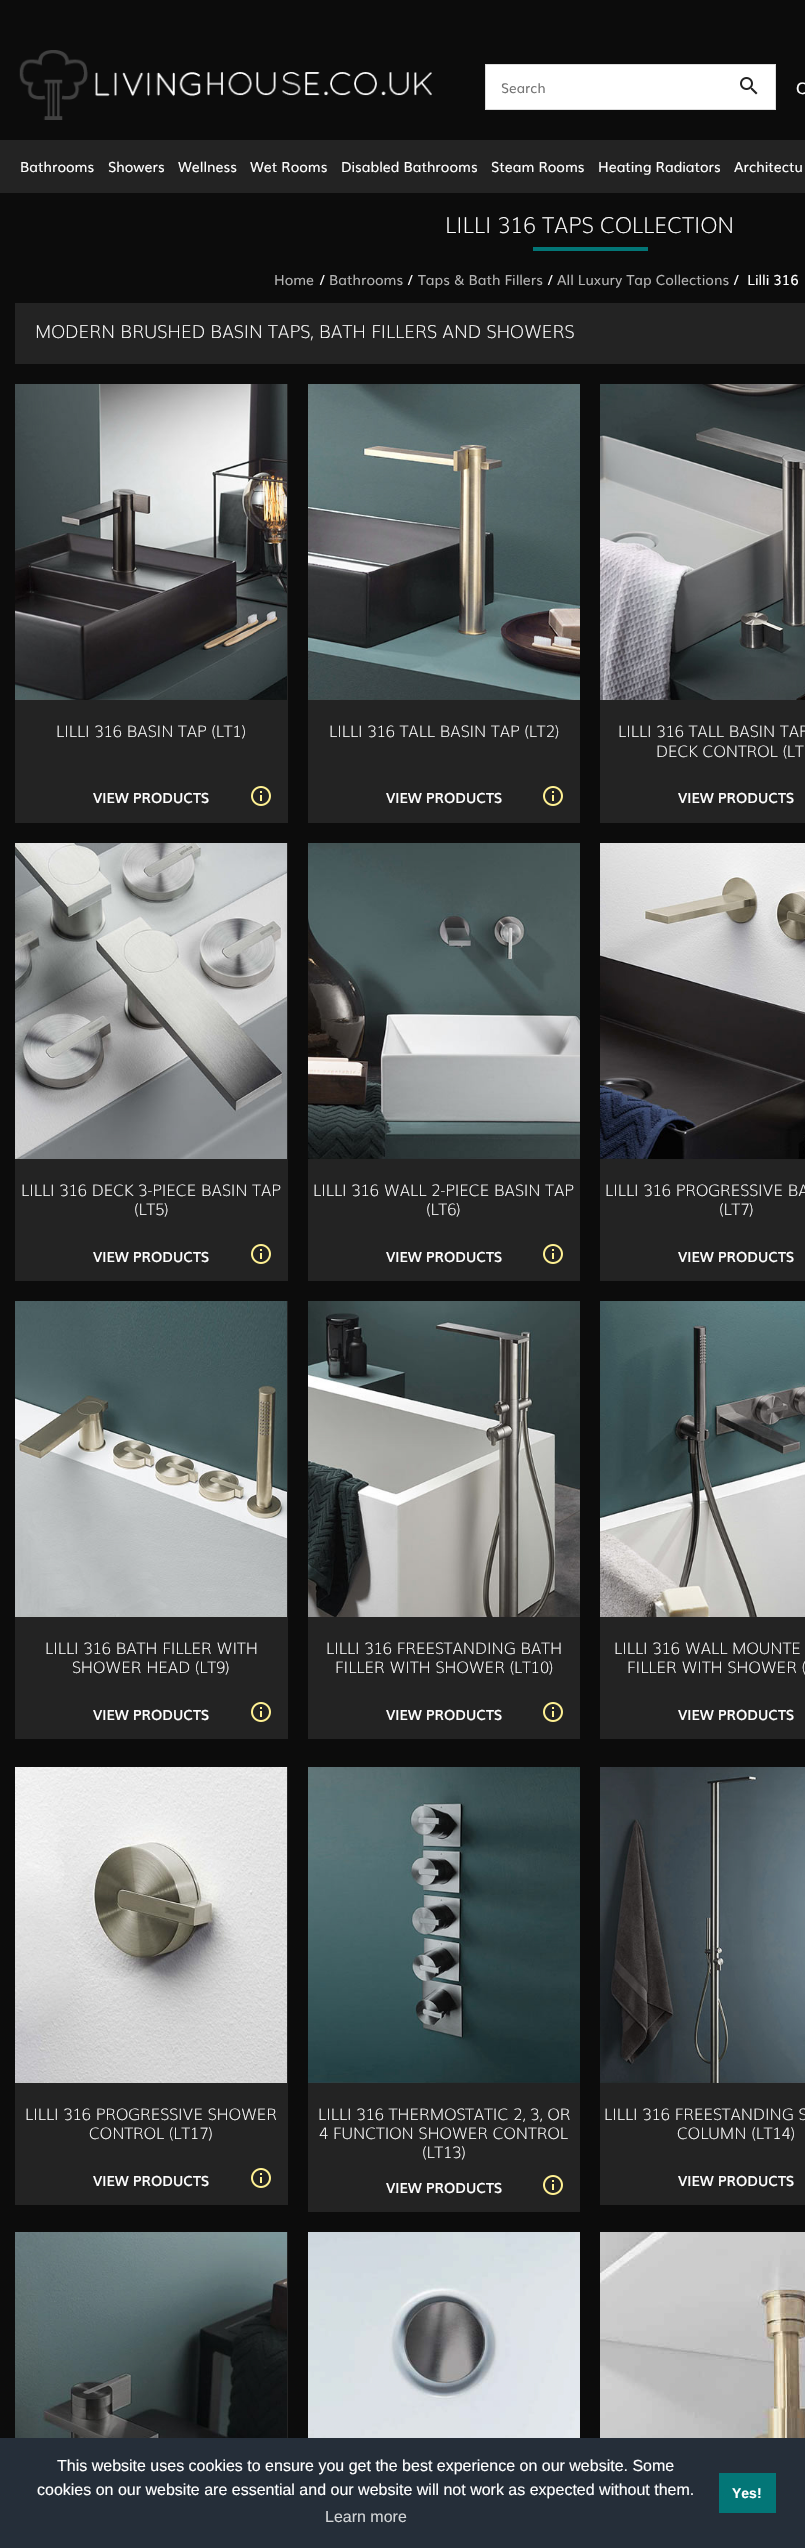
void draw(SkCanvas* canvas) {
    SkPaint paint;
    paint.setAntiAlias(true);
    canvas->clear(0xFF0C0C0C);
    canvas->drawImageRect(SkImages::DeferredFromEncodedData(SkData::MakeFromFileName("img1.png")), SkRect::MakeXYWH(19, 50, 413, 70), SkSamplingOptions());
    paint.setColor(0xFFFFFFFF);
    canvas->drawRect(SkRect::MakeXYWH(485.5f, 64.5f, 290, 45), paint);
    paint.setStyle(SkPaint::kStroke_Style);
    paint.setStrokeWidth(1);
    paint.setColor(0xFFDDDDDD);
    canvas->drawRect(SkRect::MakeXYWH(485.5f, 64.5f, 290, 45), paint);
    SkFont font1(fontMgr->matchFamilyStyle("Muli", SkFontStyle::Normal()), 13.5f);
    font1.setSubpixel(true);
    paint.setStyle(SkPaint::kFill_Style);
    paint.setColor(0xFF757575);
    canvas->drawString("Search", 501, 93, font1, paint);
    canvas->drawImageRect(SkImages::DeferredFromEncodedData(SkData::MakeFromFileName("img2.png")), SkRect::MakeXYWH(740, 77, 18, 18), SkSamplingOptions());
    SkFont font2(fontMgr->matchFamilyStyle("Muli", SkFontStyle::Normal()), 16);
    font2.setSubpixel(true);
    paint.setColor(0xFFFFFFFF);
    canvas->drawString("C", 796, 94, font2, paint);
    paint.setColor(0xFF232323);
    canvas->drawRect(SkRect::MakeXYWH(0, 140, 805, 53), paint);
    SkFont font3(fontMgr->matchFamilyStyle("Muli", SkFontStyle::Normal()), 14);
    font3.setSubpixel(true);
    paint.setColor(0xFFFFFFFF);
    canvas->drawString("Bathrooms", 20, 172, font3, paint);
    canvas->drawString("Showers", 108, 172, font3, paint);
    canvas->drawString("Wellness", 178, 172, font3, paint);
    canvas->drawString("Wet Rooms", 250, 172, font3, paint);
    canvas->drawString("Disabled Bathrooms", 341, 172, font3, paint);
    canvas->drawString("Steam Rooms", 491, 172, font3, paint);
    canvas->drawString("Heating Radiators", 598, 172, font3, paint);
    canvas->drawString("Architectu", 734, 172, font3, paint);
    SkFont font4(fontMgr->matchFamilyStyle("Muli", SkFontStyle(200, SkFontStyle::kNormal_Width, SkFontStyle::kUpright_Slant)), 22);
    font4.setSubpixel(true);
    canvas->drawString("LILLI 316 TAPS COLLECTION", 445, 233, font4, paint);
    paint.setColor(0xFF037677);
    canvas->drawRect(SkRect::MakeXYWH(533, 247, 115, 4), paint);
    paint.setColor(0xFFB3B3B3);
    canvas->drawString("Home", 274, 285, font3, paint);
    paint.setColor(0xFFFFFFFF);
    canvas->drawString("/", 319, 285, font3, paint);
    paint.setColor(0xFFB3B3B3);
    canvas->drawString("Bathrooms", 329, 285, font3, paint);
    paint.setColor(0xFFFFFFFF);
    canvas->drawString("/", 407, 285, font3, paint);
    paint.setColor(0xFFB3B3B3);
    canvas->drawString("Taps & Bath Fillers", 418, 285, font3, paint);
    paint.setColor(0xFFFFFFFF);
    canvas->drawString("/", 547, 285, font3, paint);
    paint.setColor(0xFFB3B3B3);
    canvas->drawString("All Luxury Tap Collections", 557, 285, font3, paint);
    paint.setColor(0xFFFFFFFF);
    canvas->drawString("/  Lilli 316", 733, 285, font3, paint);
    paint.setColor(0xFF232323);
    canvas->drawRect(SkRect::MakeXYWH(15, 303, 790, 61), paint);
    SkFont font5(fontMgr->matchFamilyStyle("Muli", SkFontStyle(200, SkFontStyle::kNormal_Width, SkFontStyle::kUpright_Slant)), 18);
    font5.setSubpixel(true);
    paint.setColor(0xFFFFFFFF);
    canvas->drawString("MODERN BRUSHED BASIN TAPS, BATH FILLERS AND SHOWERS", 35, 338, font5, paint);
    paint.setColor(0xFF232323);
    canvas->drawRect(SkRect::MakeXYWH(15, 384, 273, 439), paint);
    canvas->drawImageRect(SkImages::DeferredFromEncodedData(SkData::MakeFromFileName("img3.png")), SkRect::MakeXYWH(15, 384, 272, 316), SkSamplingOptions());
    SkFont font6(fontMgr->matchFamilyStyle("Muli", SkFontStyle(200, SkFontStyle::kNormal_Width, SkFontStyle::kUpright_Slant)), 16);
    font6.setSubpixel(true);
    paint.setColor(0xFFFFFFFF);
    canvas->drawString("LILLI 316 BASIN TAP (LT1)", 56, 737, font6, paint);
    SkFont font7(fontMgr->matchFamilyStyle("Muli", SkFontStyle(600, SkFontStyle::kNormal_Width, SkFontStyle::kUpright_Slant)), 14);
    font7.setSubpixel(true);
    canvas->drawString("VIEW PRODUCTS", 93, 803, font7, paint);
    canvas->drawImageRect(SkImages::DeferredFromEncodedData(SkData::MakeFromFileName("img4.png")), SkRect::MakeXYWH(251, 786, 20, 20), SkSamplingOptions());
    paint.setColor(0xFF232323);
    canvas->drawRect(SkRect::MakeXYWH(308, 700, 272, 123), paint);
    canvas->drawImageRect(SkImages::DeferredFromEncodedData(SkData::MakeFromFileName("img5.png")), SkRect::MakeXYWH(308, 384, 272, 316), SkSamplingOptions());
    paint.setColor(0xFFFFFFFF);
    canvas->drawString("LILLI 316 TALL BASIN TAP (LT2)", 329, 737, font6, paint);
    canvas->drawString("VIEW PRODUCTS", 386, 803, font7, paint);
    canvas->drawImageRect(SkImages::DeferredFromEncodedData(SkData::MakeFromFileName("img4.png")), SkRect::MakeXYWH(543, 786, 20, 20), SkSamplingOptions());
    paint.setColor(0xFF232323);
    canvas->drawRect(SkRect::MakeXYWH(600, 700, 205, 123), paint);
    canvas->drawImageRect(SkImages::DeferredFromEncodedData(SkData::MakeFromFileName("img6.png")), SkRect::MakeXYWH(600, 384, 205, 316), SkSamplingOptions());
    paint.setColor(0xFFFFFFFF);
    canvas->drawString("LILLI 316 TALL BASIN TAP", 618, 737, font6, paint);
    canvas->drawString("DECK CONTROL (LT", 656, 757, font6, paint);
    canvas->drawString("VIEW PRODUCTS", 678, 803, font7, paint);
    paint.setColor(0xFF232323);
    canvas->drawRect(SkRect::MakeXYWH(15, 843, 273, 438), paint);
    canvas->drawImageRect(SkImages::DeferredFromEncodedData(SkData::MakeFromFileName("img7.png")), SkRect::MakeXYWH(15, 843, 272, 316), SkSamplingOptions());
    paint.setColor(0xFFFFFFFF);
    canvas->drawString("LILLI 316 DECK 3-PIECE BASIN TAP", 21, 1196, font6, paint);
    canvas->drawString("(LT5)", 134, 1215, font6, paint);
    canvas->drawString("VIEW PRODUCTS", 93, 1262, font7, paint);
    canvas->drawImageRect(SkImages::DeferredFromEncodedData(SkData::MakeFromFileName("img4.png")), SkRect::MakeXYWH(251, 1244, 20, 20), SkSamplingOptions());
    paint.setColor(0xFF232323);
    canvas->drawRect(SkRect::MakeXYWH(308, 1159, 272, 122), paint);
    canvas->drawImageRect(SkImages::DeferredFromEncodedData(SkData::MakeFromFileName("img8.png")), SkRect::MakeXYWH(308, 843, 272, 316), SkSamplingOptions());
    paint.setColor(0xFFFFFFFF);
    canvas->drawString("LILLI 316 WALL 2-PIECE BASIN TAP", 313, 1196, font6, paint);
    canvas->drawString("(LT6)", 426, 1215, font6, paint);
    canvas->drawString("VIEW PRODUCTS", 386, 1262, font7, paint);
    canvas->drawImageRect(SkImages::DeferredFromEncodedData(SkData::MakeFromFileName("img4.png")), SkRect::MakeXYWH(543, 1244, 20, 20), SkSamplingOptions());
    paint.setColor(0xFF232323);
    canvas->drawRect(SkRect::MakeXYWH(600, 1159, 205, 122), paint);
    canvas->drawImageRect(SkImages::DeferredFromEncodedData(SkData::MakeFromFileName("img9.png")), SkRect::MakeXYWH(600, 843, 205, 316), SkSamplingOptions());
    paint.setColor(0xFFFFFFFF);
    canvas->drawString("LILLI 316 PROGRESSIVE BA", 605, 1196, font6, paint);
    canvas->drawString("(LT7)", 719, 1215, font6, paint);
    canvas->drawString("VIEW PRODUCTS", 678, 1262, font7, paint);
    paint.setColor(0xFF232323);
    canvas->drawRect(SkRect::MakeXYWH(15, 1301, 273, 438), paint);
    canvas->drawImageRect(SkImages::DeferredFromEncodedData(SkData::MakeFromFileName("img10.png")), SkRect::MakeXYWH(15, 1301, 272, 316), SkSamplingOptions());
    paint.setColor(0xFFFFFFFF);
    canvas->drawString("LILLI 316 BATH FILLER WITH", 45, 1654, font6, paint);
    canvas->drawString("SHOWER HEAD (LT9)", 72, 1673, font6, paint);
    canvas->drawString("VIEW PRODUCTS", 93, 1720, font7, paint);
    canvas->drawImageRect(SkImages::DeferredFromEncodedData(SkData::MakeFromFileName("img4.png")), SkRect::MakeXYWH(251, 1702, 20, 20), SkSamplingOptions());
    paint.setColor(0xFF232323);
    canvas->drawRect(SkRect::MakeXYWH(308, 1617, 272, 122), paint);
    canvas->drawImageRect(SkImages::DeferredFromEncodedData(SkData::MakeFromFileName("img11.png")), SkRect::MakeXYWH(308, 1301, 272, 316), SkSamplingOptions());
    paint.setColor(0xFFFFFFFF);
    canvas->drawString("LILLI 316 FREESTANDING BATH", 326, 1654, font6, paint);
    canvas->drawString("FILLER WITH SHOWER (LT10)", 335, 1673, font6, paint);
    canvas->drawString("VIEW PRODUCTS", 386, 1720, font7, paint);
    canvas->drawImageRect(SkImages::DeferredFromEncodedData(SkData::MakeFromFileName("img4.png")), SkRect::MakeXYWH(543, 1702, 20, 20), SkSamplingOptions());
    paint.setColor(0xFF232323);
    canvas->drawRect(SkRect::MakeXYWH(600, 1617, 205, 122), paint);
    canvas->drawImageRect(SkImages::DeferredFromEncodedData(SkData::MakeFromFileName("img12.png")), SkRect::MakeXYWH(600, 1301, 205, 316), SkSamplingOptions());
    paint.setColor(0xFFFFFFFF);
    canvas->drawString("LILLI 316 WALL MOUNTE", 614, 1654, font6, paint);
    canvas->drawString("FILLER WITH SHOWER (", 627, 1673, font6, paint);
    canvas->drawString("VIEW PRODUCTS", 678, 1720, font7, paint);
    paint.setColor(0xFF232323);
    canvas->drawRect(SkRect::MakeXYWH(15, 1767, 273, 438), paint);
    canvas->drawImageRect(SkImages::DeferredFromEncodedData(SkData::MakeFromFileName("img13.png")), SkRect::MakeXYWH(15, 1767, 272, 316), SkSamplingOptions());
    paint.setColor(0xFFFFFFFF);
    canvas->drawString("LILLI 316 PROGRESSIVE SHOWER", 25, 2120, font6, paint);
    canvas->drawString("CONTROL (LT17)", 89, 2139, font6, paint);
    canvas->drawString("VIEW PRODUCTS", 93, 2186, font7, paint);
    canvas->drawImageRect(SkImages::DeferredFromEncodedData(SkData::MakeFromFileName("img4.png")), SkRect::MakeXYWH(251, 2168, 20, 20), SkSamplingOptions());
    paint.setColor(0xFF232323);
    canvas->drawRect(SkRect::MakeXYWH(308, 2083, 272, 129), paint);
    canvas->drawImageRect(SkImages::DeferredFromEncodedData(SkData::MakeFromFileName("img14.png")), SkRect::MakeXYWH(308, 1767, 272, 316), SkSamplingOptions());
    paint.setColor(0xFFFFFFFF);
    canvas->drawString("LILLI 316 THERMOSTATIC 2, 3, OR", 318, 2120, font6, paint);
    canvas->drawString("4 FUNCTION SHOWER CONTROL", 319, 2139, font6, paint);
    canvas->drawString("(LT13)", 422, 2158, font6, paint);
    canvas->drawString("VIEW PRODUCTS", 386, 2193, font7, paint);
    canvas->drawImageRect(SkImages::DeferredFromEncodedData(SkData::MakeFromFileName("img4.png")), SkRect::MakeXYWH(543, 2175, 20, 20), SkSamplingOptions());
    paint.setColor(0xFF232323);
    canvas->drawRect(SkRect::MakeXYWH(600, 2083, 205, 122), paint);
    canvas->drawImageRect(SkImages::DeferredFromEncodedData(SkData::MakeFromFileName("img15.png")), SkRect::MakeXYWH(600, 1767, 205, 316), SkSamplingOptions());
    paint.setColor(0xFFFFFFFF);
    canvas->drawString("LILLI 316 FREESTANDING S", 604, 2120, font6, paint);
    canvas->drawString("COLUMN (LT14)", 677, 2139, font6, paint);
    canvas->drawString("VIEW PRODUCTS", 678, 2186, font7, paint);
    paint.setColor(0xFF232323);
    canvas->drawRect(SkRect::MakeXYWH(287, 2232, 1, 206), paint);
    canvas->drawImageRect(SkImages::DeferredFromEncodedData(SkData::MakeFromFileName("img16.png")), SkRect::MakeXYWH(15, 2232, 272, 206), SkSamplingOptions());
    canvas->drawImageRect(SkImages::DeferredFromEncodedData(SkData::MakeFromFileName("img17.png")), SkRect::MakeXYWH(308, 2232, 272, 206), SkSamplingOptions());
    canvas->drawImageRect(SkImages::DeferredFromEncodedData(SkData::MakeFromFileName("img18.png")), SkRect::MakeXYWH(600, 2232, 205, 206), SkSamplingOptions());
    paint.setColor(0xFF252E39);
    canvas->drawRect(SkRect::MakeXYWH(0, 2438, 805, 110), paint);
    SkFont font8(fontMgr->matchFamilyStyle("Liberation Sans", SkFontStyle::Normal()), 16);
    font8.setSubpixel(true);
    paint.setColor(0xFFFFFFFF);
    canvas->drawString("This website uses cookies to ensure you get the best experience on our website. Some", 57, 2471, font8, paint);
    canvas->drawString("cookies on our website are essential and our website will not work as expected without them.", 37, 2495, font8, paint);
    paint.setColor(0xFFD3D5D7);
    canvas->drawString("Learn more", 325, 2522, font8, paint);
    paint.setColor(0xFF037677);
    canvas->drawRect(SkRect::MakeXYWH(719, 2473, 57, 40), paint);
    SkFont font9(fontMgr->matchFamilyStyle("Liberation Sans", SkFontStyle::Bold()), 14);
    font9.setSubpixel(true);
    paint.setColor(0xFFFFFFFF);
    canvas->drawString("Yes!", 732, 2498, font9, paint);
}
